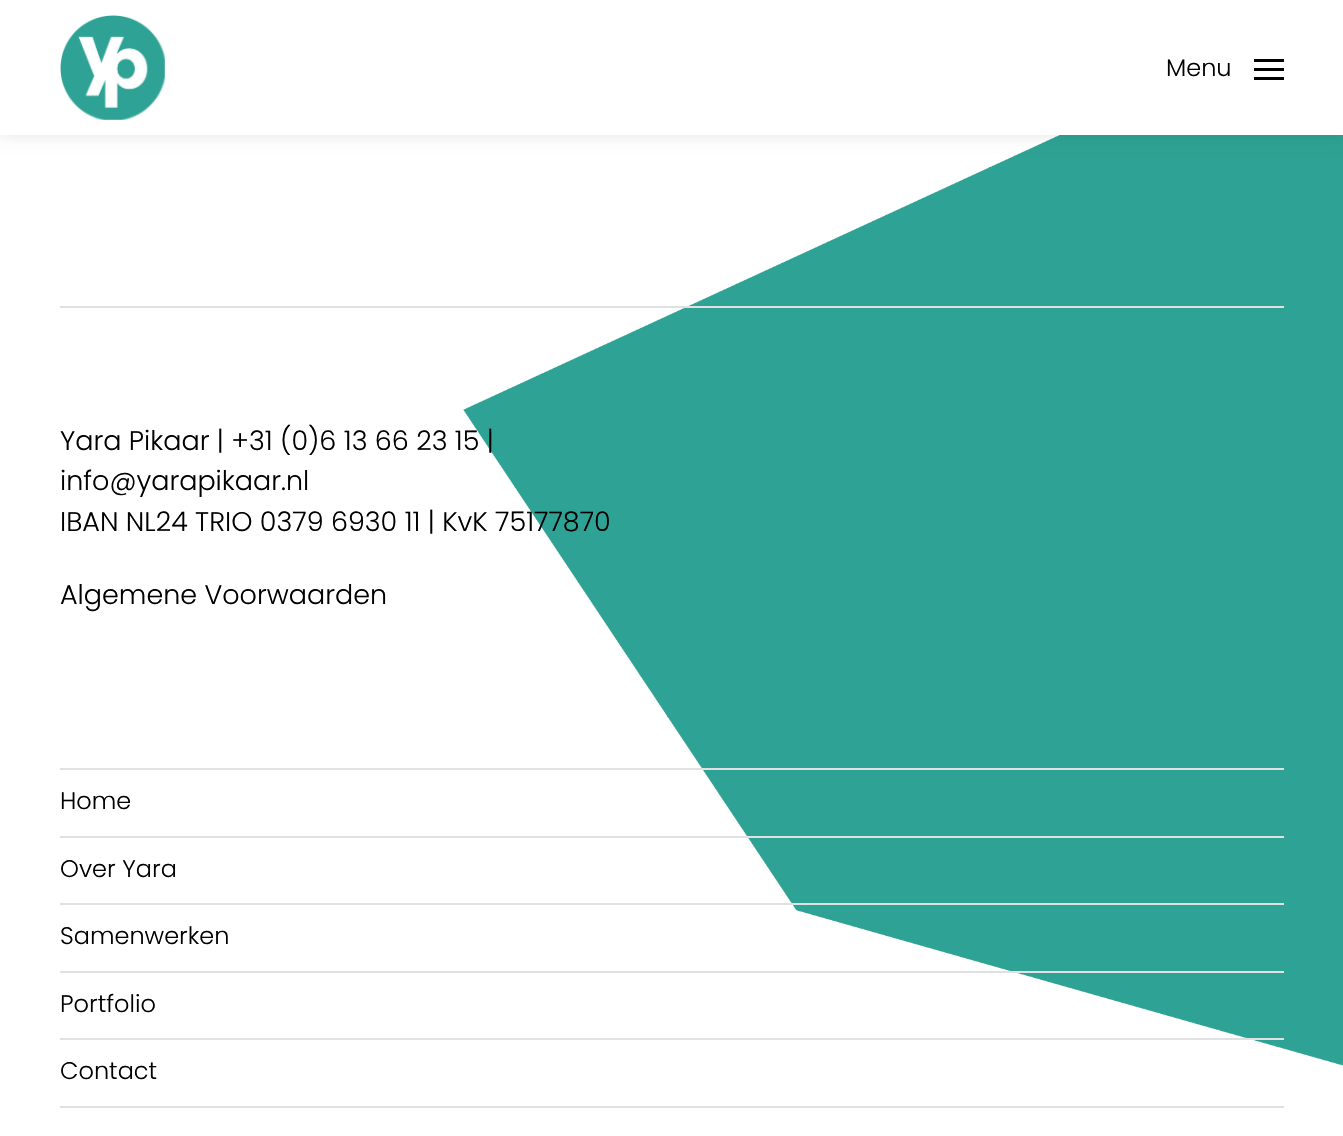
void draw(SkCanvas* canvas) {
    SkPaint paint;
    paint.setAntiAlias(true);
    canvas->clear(0xFFFFFFFF);
    canvas->drawImageRect(SkImages::DeferredFromEncodedData(SkData::MakeFromFileName("img1.png")), SkRect::MakeXYWH(463, 135, 880, 931), SkSamplingOptions());
    paint.setColor(0x1A000000);
    paint.setMaskFilter(SkMaskFilter::MakeBlur(kNormal_SkBlurStyle, 7.5f));
    canvas->drawRect(SkRect::MakeXYWH(0, 0, 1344, 135), paint);
    paint.setMaskFilter(nullptr);
    paint.setColor(0xFFFFFFFF);
    canvas->drawRect(SkRect::MakeXYWH(0, 0, 1343, 135), paint);
    canvas->drawImageRect(SkImages::DeferredFromEncodedData(SkData::MakeFromFileName("img2.png")), SkRect::MakeXYWH(60, 15, 105, 105), SkSamplingOptions());
    SkFont font1(fontMgr->matchFamilyStyle("Poppins", SkFontStyle(300, SkFontStyle::kNormal_Width, SkFontStyle::kUpright_Slant)), 24);
    font1.setSubpixel(true);
    paint.setColor(0xFF000000);
    canvas->drawString("Menu", 1166, 76, font1, paint);
    canvas->drawRect(SkRect::MakeXYWH(1254, 59, 30, 3), paint);
    canvas->drawRect(SkRect::MakeXYWH(1254, 68, 30, 3), paint);
    canvas->drawRect(SkRect::MakeXYWH(1254, 77, 30, 3), paint);
    paint.setColor(0xFFE1E1E3);
    canvas->drawRect(SkRect::MakeXYWH(60, 306, 1224, 2), paint);
    SkFont font2(fontMgr->matchFamilyStyle("Poppins", SkFontStyle(300, SkFontStyle::kNormal_Width, SkFontStyle::kUpright_Slant)), 27);
    font2.setSubpixel(true);
    paint.setColor(0xFF000000);
    canvas->drawString("Yara Pikaar | +31 (0)6 13 66 23 15 |", 60, 450, font2, paint);
    canvas->drawString("info@yarapikaar.nl", 60, 490, font2, paint);
    canvas->drawString("IBAN NL24 TRIO 0379 6930 11 | KvK 75177870", 60, 531, font2, paint);
    canvas->drawString("Algemene Voorwaarden", 60, 604, font2, paint);
    paint.setColor(0xFFE1E1E3);
    canvas->drawRect(SkRect::MakeXYWH(60, 768, 1224, 2), paint);
    paint.setColor(0xFF000000);
    canvas->drawString("Home", 60, 809, font1, paint);
    paint.setColor(0xFFE1E1E3);
    canvas->drawRect(SkRect::MakeXYWH(60, 836, 1224, 2), paint);
    paint.setColor(0xFF000000);
    canvas->drawString("Over Yara", 60, 877, font1, paint);
    paint.setColor(0xFFE1E1E3);
    canvas->drawRect(SkRect::MakeXYWH(60, 903, 1224, 2), paint);
    paint.setColor(0xFF000000);
    canvas->drawString("Samenwerken", 60, 944, font1, paint);
    paint.setColor(0xFFE1E1E3);
    canvas->drawRect(SkRect::MakeXYWH(60, 971, 1224, 2), paint);
    paint.setColor(0xFF000000);
    canvas->drawString("Portfolio", 60, 1012, font1, paint);
    paint.setColor(0xFFE1E1E3);
    canvas->drawRect(SkRect::MakeXYWH(60, 1038, 1224, 2), paint);
    canvas->drawRect(SkRect::MakeXYWH(60, 1106, 1224, 2), paint);
    paint.setColor(0xFF000000);
    canvas->drawString("Contact", 60, 1079, font1, paint);
}
